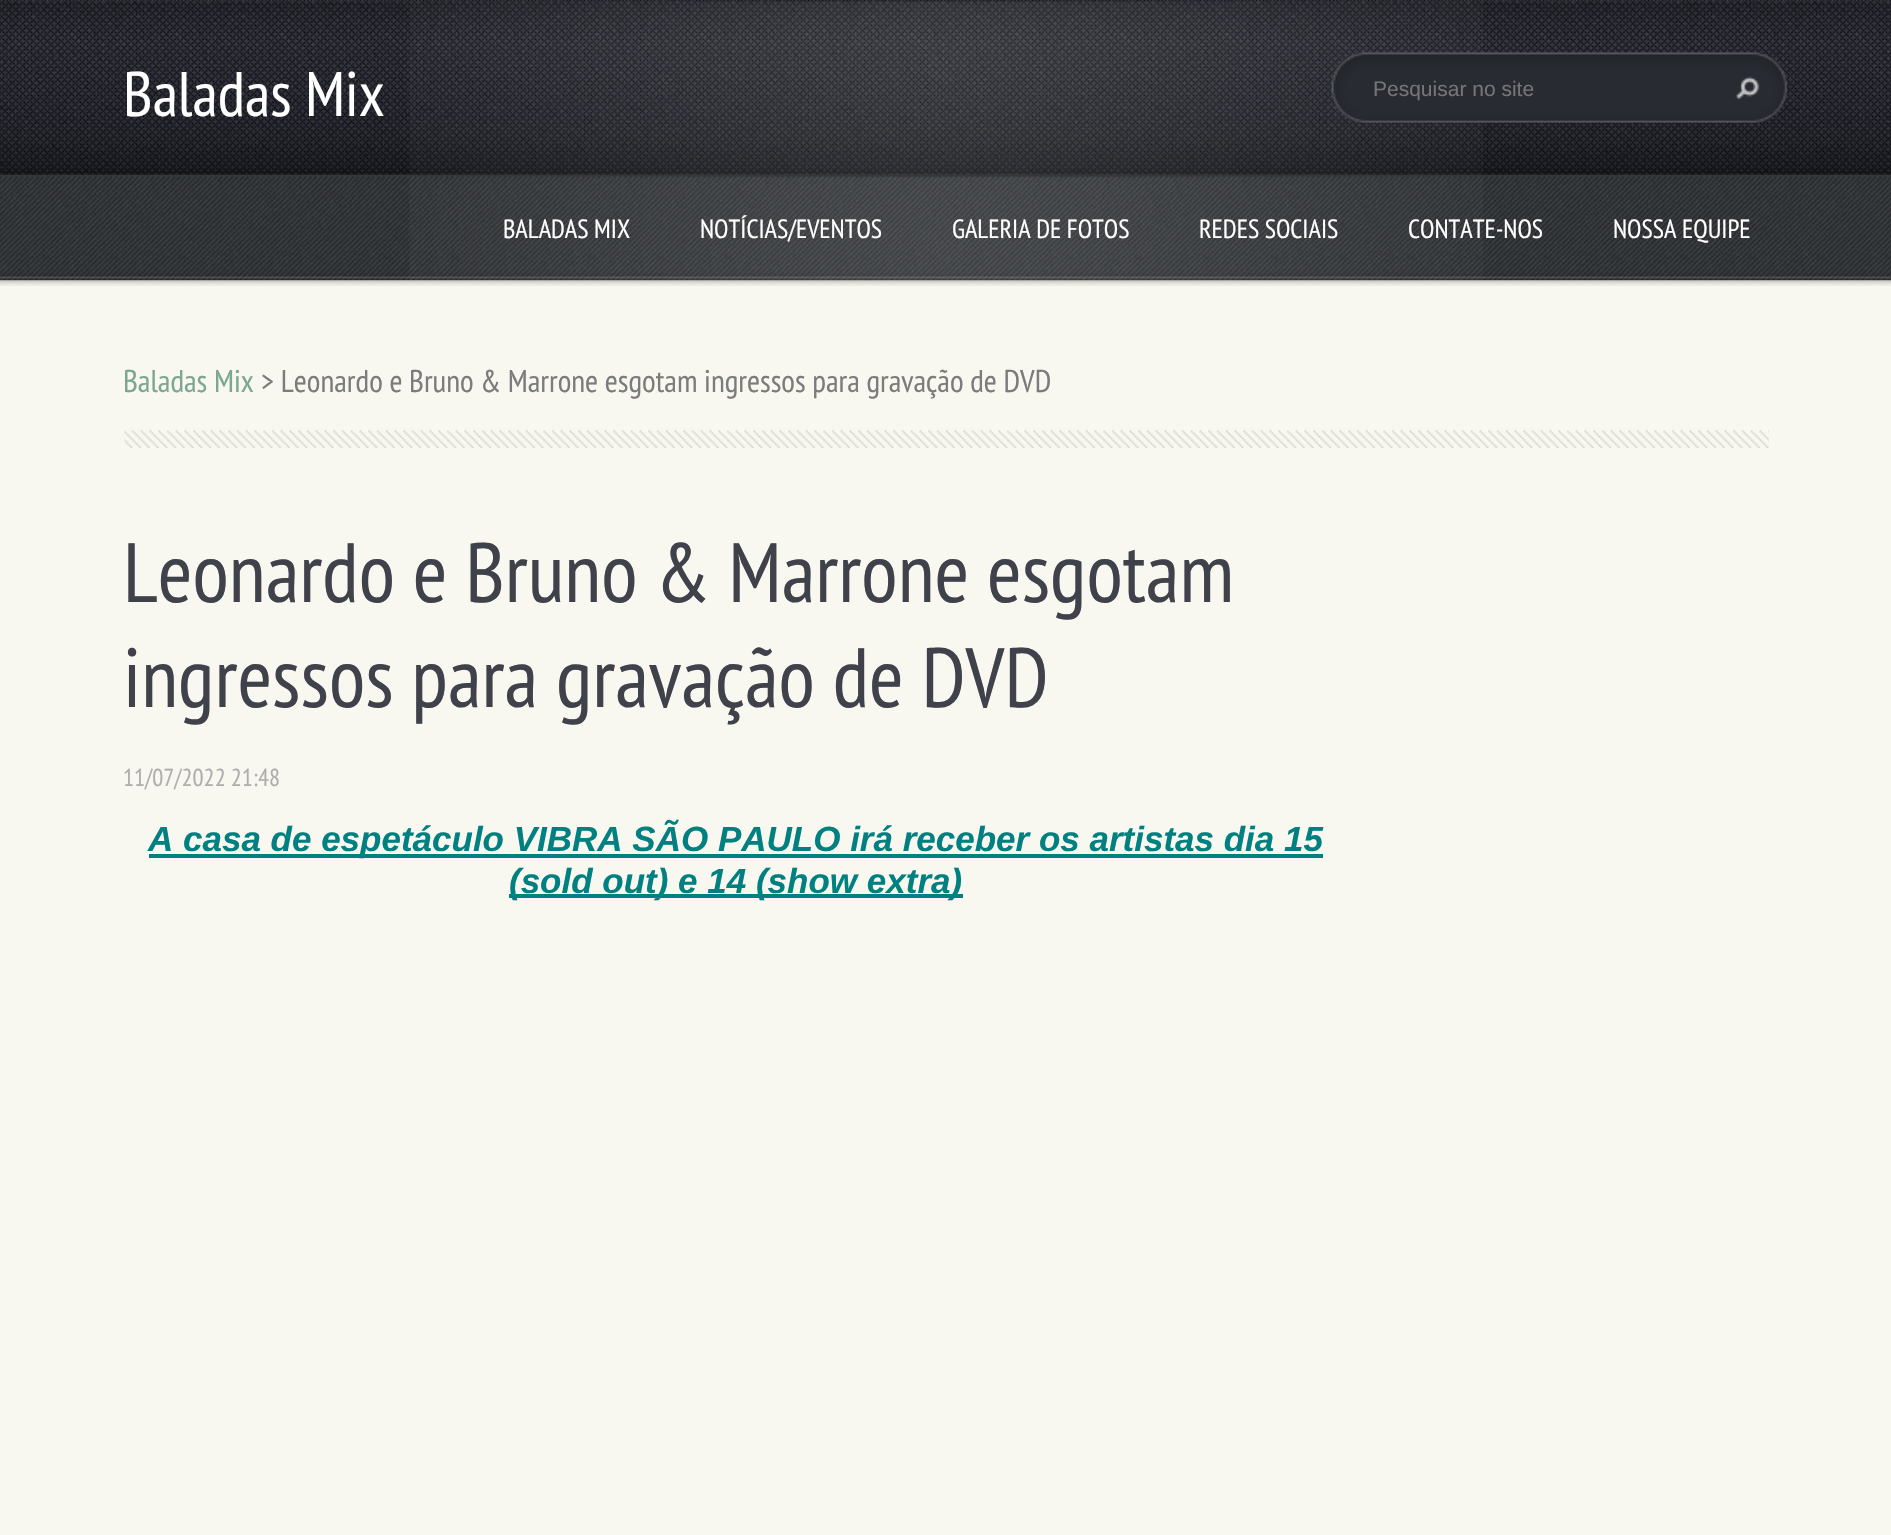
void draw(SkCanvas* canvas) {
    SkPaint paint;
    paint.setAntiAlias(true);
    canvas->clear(0xFFFFFFFF);
    canvas->drawImageRect(SkImages::DeferredFromEncodedData(SkData::MakeFromFileName("img1.png")), SkRect::MakeXYWH(0, 175, 1891, 105), SkSamplingOptions());
    canvas->drawImageRect(SkImages::DeferredFromEncodedData(SkData::MakeFromFileName("img2.png")), SkRect::MakeXYWH(0, 0, 1891, 175), SkSamplingOptions());
    canvas->drawImageRect(SkImages::DeferredFromEncodedData(SkData::MakeFromFileName("img3.png")), SkRect::MakeXYWH(409, 1, 1074, 174), SkSamplingOptions());
    SkFont font1(fontMgr->matchFamilyStyle("PT Sans Narrow", SkFontStyle::Normal()), 63);
    font1.setSubpixel(true);
    paint.setColor(0xFFFFFFFF);
    canvas->drawString("Baladas Mix", 123, 116, font1, paint);
    canvas->drawImageRect(SkImages::DeferredFromEncodedData(SkData::MakeFromFileName("img4.png")), SkRect::MakeXYWH(1331, 52, 456, 71), SkSamplingOptions());
    SkFont font2(fontMgr->matchFamilyStyle("Liberation Sans", SkFontStyle::Normal()), 21);
    font2.setSubpixel(true);
    paint.setColor(0xFF757575);
    canvas->drawString("Pesquisar no site", 1373, 96, font2, paint);
    canvas->drawImageRect(SkImages::DeferredFromEncodedData(SkData::MakeFromFileName("img5.png")), SkRect::MakeXYWH(1735, 76, 25, 24), SkSamplingOptions());
    canvas->drawImageRect(SkImages::DeferredFromEncodedData(SkData::MakeFromFileName("img6.png")), SkRect::MakeXYWH(0, 175, 1891, 105), SkSamplingOptions());
    canvas->drawImageRect(SkImages::DeferredFromEncodedData(SkData::MakeFromFileName("img7.png")), SkRect::MakeXYWH(409, 176, 1074, 104), SkSamplingOptions());
    SkFont font3(fontMgr->matchFamilyStyle("PT Sans Narrow", SkFontStyle::Normal()), 26.25f);
    font3.setSubpixel(true);
    paint.setColor(0xFFFFFFFF);
    canvas->drawString("BALADAS MIX", 503, 238, font3, paint);
    canvas->drawString("NOTÍCIAS/EVENTOS", 700, 238, font3, paint);
    canvas->drawString("GALERIA DE FOTOS", 952, 238, font3, paint);
    canvas->drawString("REDES SOCIAIS", 1199, 238, font3, paint);
    canvas->drawString("CONTATE-NOS", 1408, 238, font3, paint);
    canvas->drawString("NOSSA EQUIPE", 1613, 238, font3, paint);
    paint.setColor(0xFFF8F7F0);
    canvas->drawRect(SkRect::MakeXYWH(0, 280, 1891, 1255), paint);
    canvas->drawImageRect(SkImages::DeferredFromEncodedData(SkData::MakeFromFileName("img8.png")), SkRect::MakeXYWH(0, 280, 1891, 6), SkSamplingOptions());
    canvas->drawImageRect(SkImages::DeferredFromEncodedData(SkData::MakeFromFileName("img9.png")), SkRect::MakeXYWH(124, 430, 1645, 18), SkSamplingOptions());
    SkFont font4(fontMgr->matchFamilyStyle("PT Sans Narrow", SkFontStyle::Normal()), 31.5f);
    font4.setSubpixel(true);
    paint.setColor(0xFF7CA792);
    canvas->drawString("Baladas Mix", 123, 392, font4, paint);
    paint.setColor(0xFF7C7C7C);
    canvas->drawString("> Leonardo e Bruno & Marrone esgotam ingressos para gravação de DVD", 261, 392, font4, paint);
    SkFont font5(fontMgr->matchFamilyStyle("PT Sans Narrow", SkFontStyle::Normal()), 84);
    font5.setSubpixel(true);
    paint.setColor(0xFF3F424A);
    canvas->drawString("Leonardo e Bruno & Marrone esgotam", 123, 602, font5, paint);
    canvas->drawString("ingressos para gravação de DVD", 123, 707, font5, paint);
    SkFont font6(fontMgr->matchFamilyStyle("PT Sans Narrow", SkFontStyle::Normal()), 24.5f);
    font6.setSubpixel(true);
    paint.setColor(0xFFAEAEAE);
    canvas->drawString("11/07/2022 21:48", 123, 786, font6, paint);
    paint.setColor(0xFF008080);
    canvas->drawRect(SkRect::MakeXYWH(149, 854, 1174, 4), paint);
    SkFont font7(fontMgr->matchFamilyStyle("Liberation Sans", SkFontStyle::BoldItalic()), 35);
    font7.setSubpixel(true);
    canvas->drawString("A casa de espetáculo VIBRA SÃO PAULO irá receber os artistas dia 15", 148, 851, font7, paint);
    canvas->drawRect(SkRect::MakeXYWH(509, 894, 454, 4), paint);
    canvas->drawString("(sold out) e 14 (show extra)", 509, 893, font7, paint);
}
